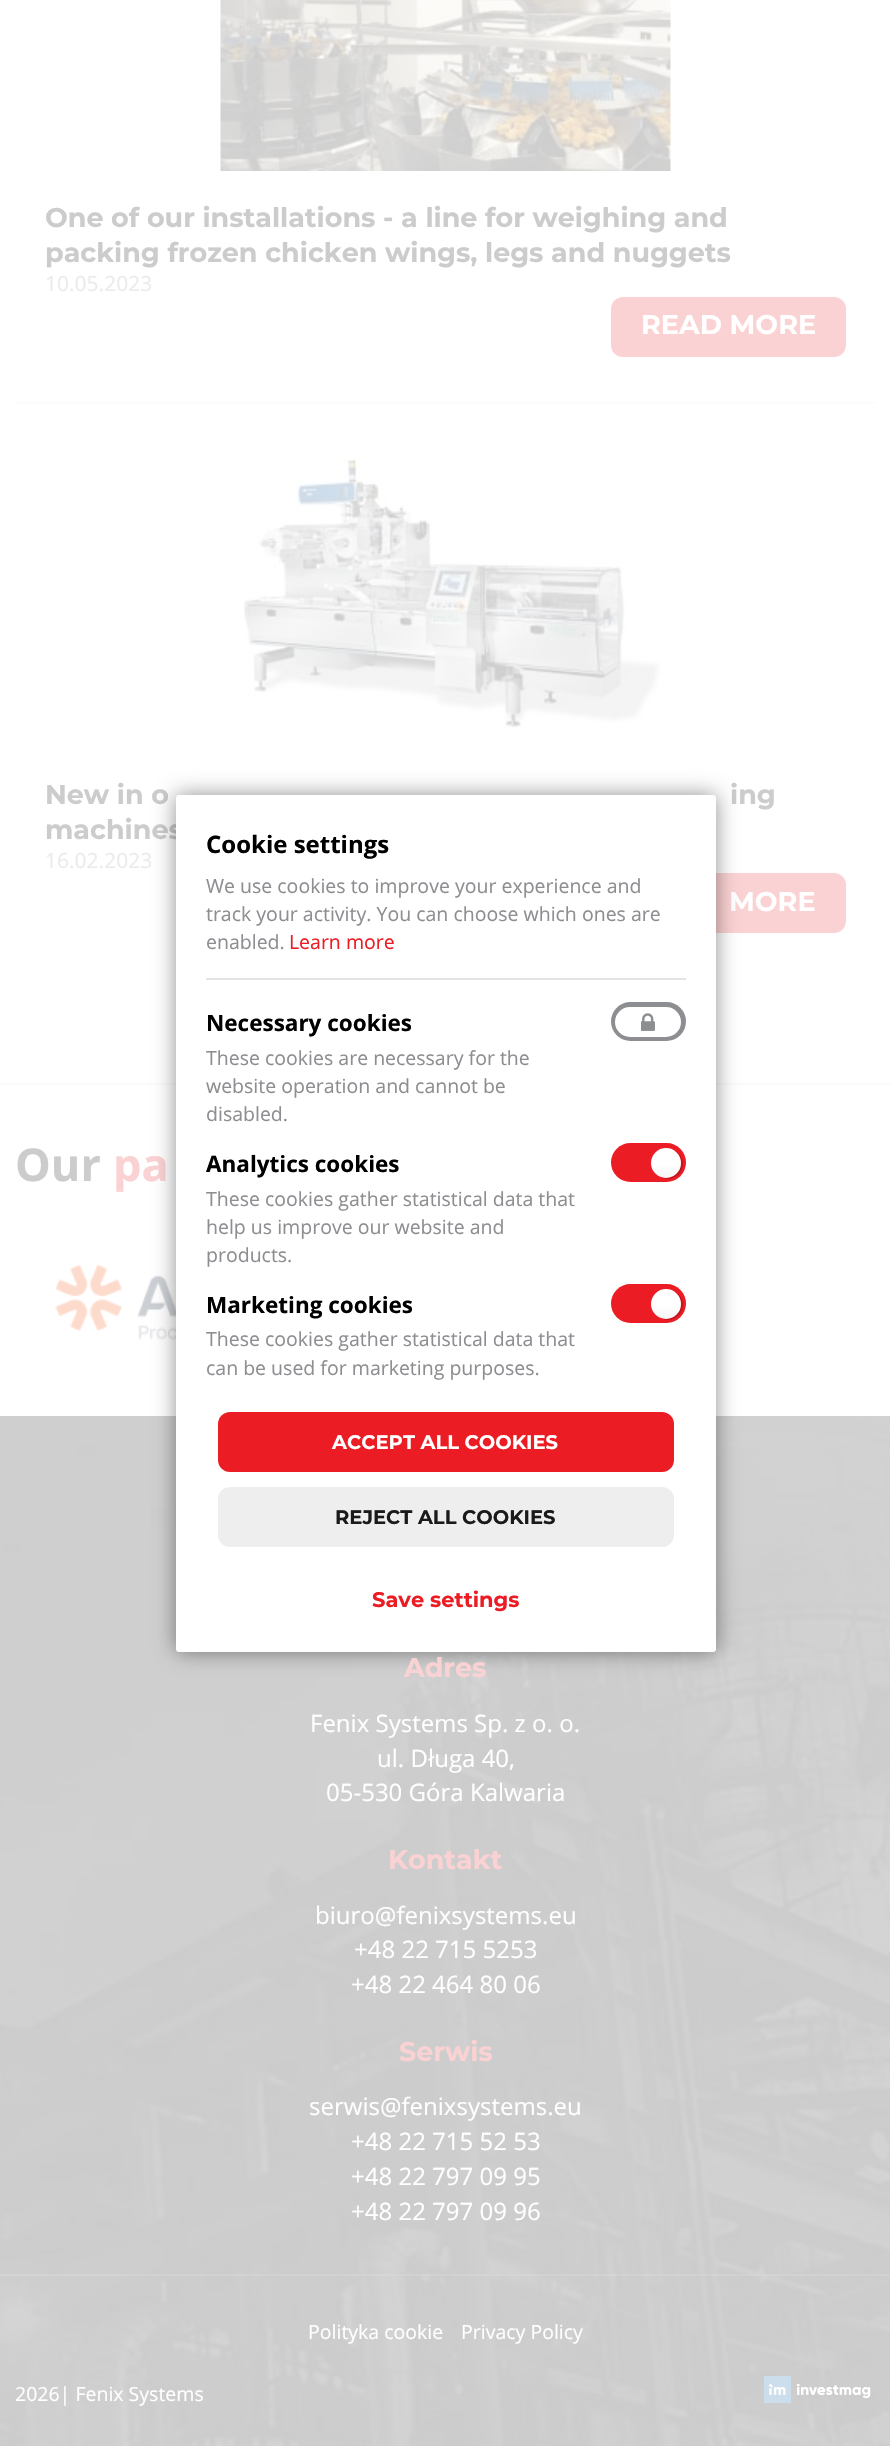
void draw(SkCanvas* canvas) {
    SkPaint paint;
    paint.setAntiAlias(true);
    canvas->clear(0xFFFFFFFF);
    paint.setColor(0xFFFCFCFC);
    canvas->drawRect(SkRect::MakeXYWH(15, 402, 861, 2), paint);
    canvas->drawImageRect(SkImages::DeferredFromEncodedData(SkData::MakeFromFileName("img1.png")), SkRect::MakeXYWH(220, 0, 451, 171), SkSamplingOptions());
    SkFont font1(fontMgr->matchFamilyStyle("Montserrat", SkFontStyle::Bold()), 27);
    font1.setSubpixel(true);
    paint.setColor(0xFFCCCCCC);
    canvas->drawString("One of our installations - a line for weighing and", 45, 227, font1, paint);
    canvas->drawString("packing frozen chicken wings, legs and nuggets", 45, 262, font1, paint);
    SkFont font2(fontMgr->matchFamilyStyle("Open Sans", SkFontStyle::Normal()), 21);
    font2.setSubpixel(true);
    paint.setColor(0xFFEBEBEB);
    canvas->drawString("10.05.2023", 45, 291, font2, paint);
    paint.setColor(0xFFFBD2D3);
    canvas->drawRoundRect(SkRect::MakeXYWH(611, 297, 235, 60), 12, 12, paint);
    paint.setColor(0xFFFFFFFF);
    canvas->drawString("READ MORE", 641, 334, font1, paint);
    canvas->drawImageRect(SkImages::DeferredFromEncodedData(SkData::MakeFromFileName("img2.png")), SkRect::MakeXYWH(244, 452, 418, 284), SkSamplingOptions());
    paint.setColor(0xFFCCCCCC);
    canvas->drawString("New in o", 45, 804, font1, paint);
    canvas->drawString("ing", 730, 804, font1, paint);
    canvas->drawString("machines", 45, 839, font1, paint);
    paint.setColor(0xFFEBEBEB);
    canvas->drawString("16.02.2023", 45, 868, font2, paint);
    paint.setColor(0xFFFBD2D3);
    canvas->drawRoundRect(SkRect::MakeXYWH(611, 873, 235, 60), 12, 12, paint);
    paint.setColor(0xFFFFFFFF);
    canvas->drawString("MORE", 729, 911, font1, paint);
    paint.setColor(0xFFFAFAFA);
    canvas->drawRect(SkRect::MakeXYWH(0, 1083, 890, 2), paint);
    SkFont font3(fontMgr->matchFamilyStyle("Open Sans", SkFontStyle::Bold()), 45);
    font3.setSubpixel(true);
    paint.setColor(0xFFCCCCCC);
    canvas->drawString("Our", 15, 1181, font3, paint);
    paint.setColor(0xFFFBD2D3);
    canvas->drawString("pa", 113, 1181, font3, paint);
    canvas->drawImageRect(SkImages::DeferredFromEncodedData(SkData::MakeFromFileName("img3.png")), SkRect::MakeXYWH(55, 1264, 121, 76), SkSamplingOptions());
    canvas->drawImageRect(SkImages::DeferredFromEncodedData(SkData::MakeFromFileName("img5.png")), SkRect::MakeXYWH(0, 1416, 890, 1030), SkSamplingOptions());
    paint.setColor(0x70000000);
    paint.setMaskFilter(SkMaskFilter::MakeBlur(kNormal_SkBlurStyle, 10.5f));
    canvas->drawRoundRect(SkRect::MakeXYWH(176, 795, 540, 857), 3, 3, paint);
    paint.setMaskFilter(nullptr);
    paint.setColor(0xFFFFFFFF);
    canvas->drawRoundRect(SkRect::MakeXYWH(176, 795, 540, 857), 3, 3, paint);
    paint.setColor(0xFFE3E5E5);
    canvas->drawRect(SkRect::MakeXYWH(206, 978, 480, 2), paint);
    SkFont font4(fontMgr->matchFamilyStyle("Open Sans", SkFontStyle::Bold()), 24);
    font4.setSubpixel(true);
    paint.setColor(0xFF000000);
    canvas->drawString("Cookie settings", 206, 853, font4, paint);
    SkFont font5(fontMgr->matchFamilyStyle("Open Sans", SkFontStyle::Normal()), 19.5f);
    font5.setSubpixel(true);
    paint.setColor(0xFF8D8E91);
    canvas->drawString("We use cookies to improve your experience and", 206, 893, font5, paint);
    canvas->drawString("track your activity. You can choose which ones are", 206, 921, font5, paint);
    canvas->drawString("enabled.", 206, 949, font5, paint);
    paint.setColor(0xFFEC1C24);
    canvas->drawString("Learn more", 289, 949, font5, paint);
    SkFont font6(fontMgr->matchFamilyStyle("Open Sans", SkFontStyle::Bold()), 22.5f);
    font6.setSubpixel(true);
    paint.setColor(0xFF000000);
    canvas->drawString("Necessary cookies", 206, 1031, font6, paint);
    paint.setColor(0xFF8D8E91);
    canvas->drawString("These cookies are necessary for the", 206, 1065, font5, paint);
    canvas->drawString("website operation and cannot be", 206, 1093, font5, paint);
    canvas->drawString("disabled.", 206, 1121, font5, paint);
    canvas->drawRoundRect(SkRect::MakeXYWH(611, 1002, 75, 39), 19.5f, 19.5f, paint);
    paint.setColor(0xFFFFFFFF);
    canvas->drawRoundRect(SkRect::MakeXYWH(615, 1007, 66, 30), 15, 15, paint);
    canvas->drawImageRect(SkImages::DeferredFromEncodedData(SkData::MakeFromFileName("img4.png")), SkRect::MakeXYWH(641, 1013, 14, 18), SkSamplingOptions());
    paint.setColor(0xFF000000);
    canvas->drawString("Analytics cookies", 206, 1172, font6, paint);
    paint.setColor(0xFF8D8E91);
    canvas->drawString("These cookies gather statistical data that", 206, 1206, font5, paint);
    canvas->drawString("help us improve our website and", 206, 1234, font5, paint);
    canvas->drawString("products.", 206, 1262, font5, paint);
    paint.setColor(0xFFEC1C24);
    canvas->drawRoundRect(SkRect::MakeXYWH(611, 1143, 75, 39), 19.5f, 19.5f, paint);
    paint.setColor(0xFFBD161D);
    canvas->drawPath(SkPathBuilder().moveTo(660, 1176.5f).cubicTo(672.5f, 1184.5f, 688, 1171, 681.5f, 1157.5f).cubicTo(680, 1154.5f, 677.5f, 1151.5f, 674, 1150).cubicTo(689.5f, 1160, 677, 1184, 660, 1176.5f).close().detach(), paint);
    {
        const SkColor colors[] = {0xFFF5F5F5, 0xFFFFFFFF};
        const float stops[] = {0, 0.46f};
        const SkPoint ends[] = {{666, 1178}, {666, 1148}};
        paint.setShader(SkGradientShader::MakeLinear(ends, colors, stops, 2, SkTileMode::kClamp));
        paint.setAlpha(255);
    }
    canvas->drawCircle(666, 1163, 15, paint);
    paint.setShader(nullptr);
    paint.setColor(0xFF000000);
    canvas->drawString("Marketing cookies", 206, 1313, font6, paint);
    paint.setColor(0xFF8D8E91);
    canvas->drawString("These cookies gather statistical data that", 206, 1346, font5, paint);
    canvas->drawString("can be used for marketing purposes.", 206, 1375, font5, paint);
    paint.setColor(0xFFEC1C24);
    canvas->drawRoundRect(SkRect::MakeXYWH(611, 1284, 75, 39), 19.5f, 19.5f, paint);
    paint.setColor(0xFFBD161D);
    canvas->drawPath(SkPathBuilder().moveTo(660, 1317.5f).cubicTo(672.5f, 1325.5f, 688, 1312, 681.5f, 1298.5f).cubicTo(680, 1295.5f, 677.5f, 1292.5f, 674, 1291).cubicTo(689.5f, 1301, 677, 1325, 660, 1317.5f).close().detach(), paint);
    {
        const SkColor colors[] = {0xFFF5F5F5, 0xFFFFFFFF};
        const float stops[] = {0, 0.46f};
        const SkPoint ends[] = {{666, 1319}, {666, 1289}};
        paint.setShader(SkGradientShader::MakeLinear(ends, colors, stops, 2, SkTileMode::kClamp));
        paint.setAlpha(255);
    }
    canvas->drawCircle(666, 1304, 15, paint);
    paint.setShader(nullptr);
    paint.setColor(0xFFEC1C24);
    canvas->drawRoundRect(SkRect::MakeXYWH(218, 1412, 456, 60), 12, 12, paint);
    SkFont font7(fontMgr->matchFamilyStyle("Montserrat", SkFontStyle::Bold()), 19.5f);
    font7.setSubpixel(true);
    paint.setColor(0xFFFFFFFF);
    canvas->drawString("ACCEPT ALL COOKIES", 332, 1449, font7, paint);
    paint.setColor(0xFFEEEEEE);
    canvas->drawRoundRect(SkRect::MakeXYWH(218, 1487, 456, 60), 12, 12, paint);
    paint.setColor(0xFF1A1A1A);
    canvas->drawString("REJECT ALL COOKIES", 335, 1524, font7, paint);
    SkFont font8(fontMgr->matchFamilyStyle("Montserrat", SkFontStyle::Bold()), 21);
    font8.setSubpixel(true);
    paint.setColor(0xFFEC1C24);
    canvas->drawString("Save settings", 372, 1607, font8, paint);
    paint.setColor(0xFFFBD2D3);
    canvas->drawString("Adres", 404, 1677, font1, paint);
    SkFont font9(fontMgr->matchFamilyStyle("Open Sans", SkFontStyle::Normal()), 24);
    font9.setSubpixel(true);
    paint.setColor(0xFFFFFFFF);
    canvas->drawString("Fenix Systems Sp. z o. o.", 310, 1732, font9, paint);
    canvas->drawString("ul. Długa 40,", 377, 1767, font9, paint);
    canvas->drawString("05-530 Góra Kalwaria", 326, 1801, font9, paint);
    paint.setColor(0xFFFBD2D3);
    canvas->drawString("Kontakt", 388, 1869, font1, paint);
    paint.setColor(0xFFFFFFFF);
    canvas->drawString("biuro@fenixsystems.eu", 315, 1924, font9, paint);
    canvas->drawString("+48 22 715 5253", 354, 1958, font9, paint);
    canvas->drawString("+48 22 464 80 06", 351, 1993, font9, paint);
    paint.setColor(0xFFFBD2D3);
    canvas->drawString("Serwis", 399, 2061, font1, paint);
    paint.setColor(0xFFFFFFFF);
    canvas->drawString("serwis@fenixsystems.eu", 309, 2115, font9, paint);
    canvas->drawString("+48 22 715 52 53", 351, 2150, font9, paint);
    canvas->drawString("+48 22 797 09 95", 351, 2185, font9, paint);
    canvas->drawString("+48 22 797 09 96", 351, 2220, font9, paint);
    paint.setColor(0x1AFFFFFF);
    canvas->drawRect(SkRect::MakeXYWH(0, 2274, 890, 2), paint);
    paint.setColor(0xFFFFFFFF);
    canvas->drawString("Polityka cookie", 308, 2339, font5, paint);
    canvas->drawString("Privacy Policy", 461, 2339, font5, paint);
    canvas->drawString("2026| Fenix Systems", 15, 2401, font5, paint);
    canvas->drawImageRect(SkImages::DeferredFromEncodedData(SkData::MakeFromFileName("img6.png")), SkRect::MakeXYWH(764, 2376, 107, 27), SkSamplingOptions());
}
